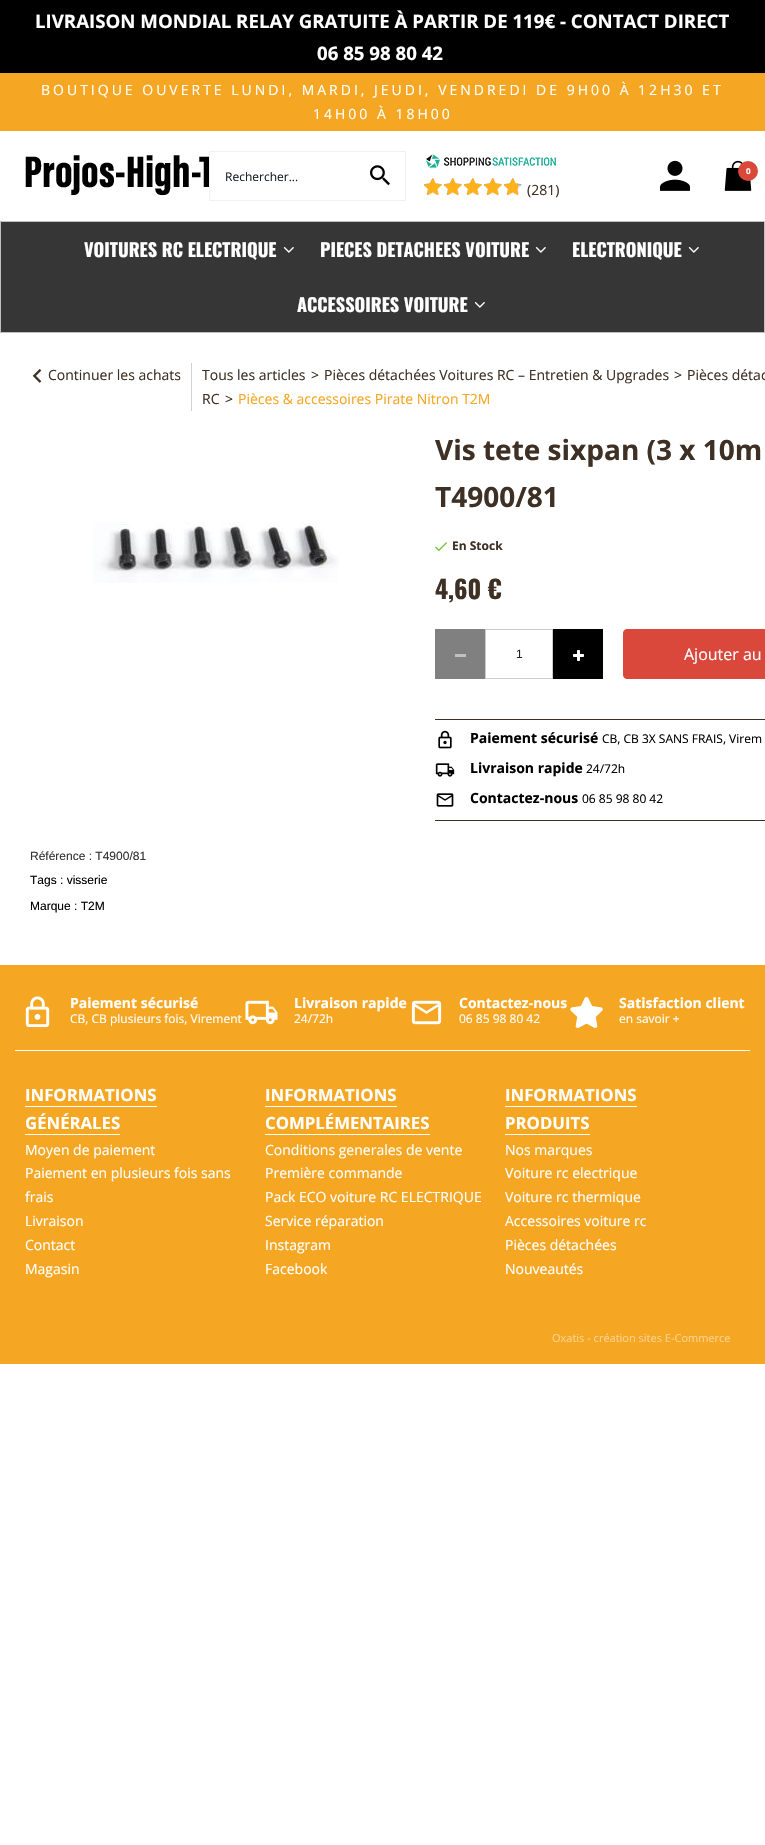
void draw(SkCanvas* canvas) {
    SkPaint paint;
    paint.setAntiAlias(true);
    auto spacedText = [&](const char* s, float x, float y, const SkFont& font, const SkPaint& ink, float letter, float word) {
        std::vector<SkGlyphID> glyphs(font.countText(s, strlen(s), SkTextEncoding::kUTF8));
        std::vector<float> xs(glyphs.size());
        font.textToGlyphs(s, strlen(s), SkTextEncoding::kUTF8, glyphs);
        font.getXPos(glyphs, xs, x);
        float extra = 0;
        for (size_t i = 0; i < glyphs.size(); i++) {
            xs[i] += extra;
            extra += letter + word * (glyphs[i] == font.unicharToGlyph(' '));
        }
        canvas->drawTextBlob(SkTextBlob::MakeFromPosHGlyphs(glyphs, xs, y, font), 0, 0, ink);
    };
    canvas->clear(0xFFFFFFFF);
    paint.setColor(0xFF000000);
    canvas->drawRect(SkRect::MakeXYWH(0, 0, 765, 73), paint);
    SkFont font1(fontMgr->matchFamilyStyle("Open Sans", SkFontStyle::Bold()), 18.65f);
    font1.setSubpixel(true);
    paint.setColor(0xFFFFFFFF);
    canvas->drawString("LIVRAISON MONDIAL RELAY GRATUITE À PARTIR DE 119€ - CONTACT DIRECT", 35, 28, font1, paint);
    canvas->drawString("06 85 98 80 42", 317, 60, font1, paint);
    paint.setColor(0xFFF5A623);
    canvas->drawRect(SkRect::MakeXYWH(0, 73, 765, 58), paint);
    SkFont font2(fontMgr->matchFamilyStyle("Open Sans", SkFontStyle::Normal()), 14);
    font2.setSubpixel(true);
    paint.setColor(0xFFFFFFFF);
    spacedText("BOUTIQUE OUVERTE LUNDI, MARDI, JEUDI, VENDREDI DE 9H00 À 12H30 ET", 41, 95, font2, paint, 3, 0);
    spacedText("14H00 À 18H00", 313, 119, font2, paint, 3, 0);
    canvas->drawImageRect(SkImages::DeferredFromEncodedData(SkData::MakeFromFileName("img1.png")), SkRect::MakeXYWH(25, 155, 184, 41), SkSamplingOptions());
    paint.setColor(0xFFF1F1F1);
    canvas->drawRect(SkRect::MakeXYWH(209, 151, 197, 1), paint);
    canvas->drawRect(SkRect::MakeXYWH(209, 200, 146, 1), paint);
    canvas->drawRect(SkRect::MakeXYWH(209, 151, 1, 50), paint);
    SkFont font3(fontMgr->matchFamilyStyle("Open Sans", SkFontStyle::Normal()), 12);
    font3.setSubpixel(true);
    paint.setColor(0xFF1A1F26);
    canvas->drawString("Rechercher...", 225, 181, font3, paint);
    paint.setColor(0xFFF1F1F1);
    canvas->drawRect(SkRect::MakeXYWH(405, 151, 1, 50), paint);
    canvas->drawRect(SkRect::MakeXYWH(355, 200, 51, 1), paint);
    canvas->drawImageRect(SkImages::DeferredFromEncodedData(SkData::MakeFromFileName("img2.png")), SkRect::MakeXYWH(370, 165, 20, 21), SkSamplingOptions());
    canvas->drawImageRect(SkImages::DeferredFromEncodedData(SkData::MakeFromFileName("img3.png")), SkRect::MakeXYWH(426, 154, 130, 14), SkSamplingOptions());
    canvas->drawImageRect(SkImages::DeferredFromEncodedData(SkData::MakeFromFileName("img4.png")), SkRect::MakeXYWH(424, 178, 98, 17), SkSamplingOptions());
    canvas->drawImageRect(SkImages::DeferredFromEncodedData(SkData::MakeFromFileName("img5.png")), SkRect::MakeXYWH(424, 178, 94, 17), SkSamplingOptions());
    paint.setColor(0xFF3E3024);
    canvas->drawString("(281)", 527, 195, font2, paint);
    canvas->drawImageRect(SkImages::DeferredFromEncodedData(SkData::MakeFromFileName("img6.png")), SkRect::MakeXYWH(660, 160, 30, 31), SkSamplingOptions());
    canvas->drawImageRect(SkImages::DeferredFromEncodedData(SkData::MakeFromFileName("img7.png")), SkRect::MakeXYWH(724, 160, 28, 31), SkSamplingOptions());
    paint.setColor(0xFFD9483B);
    canvas->drawCircle(748, 171, 10, paint);
    SkFont font4(fontMgr->matchFamilyStyle("Open Sans", SkFontStyle::Bold()), 8);
    font4.setSubpixel(true);
    paint.setColor(0xFFFFFFFF);
    canvas->drawString("0", 746, 174, font4, paint);
    paint.setColor(0xFF363636);
    canvas->drawRect(SkRect::MakeXYWH(0.5f, 221.5f, 764, 111), paint);
    paint.setStyle(SkPaint::kStroke_Style);
    paint.setStrokeWidth(1);
    paint.setColor(0xFFBFBFBF);
    canvas->drawRect(SkRect::MakeXYWH(0.5f, 221.5f, 764, 111), paint);
    SkFont font5(fontMgr->matchFamilyStyle("Oswald", SkFontStyle::Bold()), 18.25f);
    font5.setSubpixel(true);
    paint.setStyle(SkPaint::kFill_Style);
    paint.setColor(0xFFFFFFFF);
    canvas->drawString("VOITURES RC ELECTRIQUE", 84, 257, font5, paint);
    canvas->drawImageRect(SkImages::DeferredFromEncodedData(SkData::MakeFromFileName("img8.png")), SkRect::MakeXYWH(283, 247, 11, 6), SkSamplingOptions());
    canvas->drawString("PIECES DETACHEES VOITURE", 320, 257, font5, paint);
    canvas->drawImageRect(SkImages::DeferredFromEncodedData(SkData::MakeFromFileName("img8.png")), SkRect::MakeXYWH(535, 247, 11, 6), SkSamplingOptions());
    canvas->drawString("ELECTRONIQUE", 572, 257, font5, paint);
    canvas->drawImageRect(SkImages::DeferredFromEncodedData(SkData::MakeFromFileName("img8.png")), SkRect::MakeXYWH(688, 247, 11, 6), SkSamplingOptions());
    canvas->drawString("ACCESSOIRES VOITURE", 297, 312, font5, paint);
    canvas->drawImageRect(SkImages::DeferredFromEncodedData(SkData::MakeFromFileName("img8.png")), SkRect::MakeXYWH(474, 302, 11, 6), SkSamplingOptions());
    canvas->drawImageRect(SkImages::DeferredFromEncodedData(SkData::MakeFromFileName("img9.png")), SkRect::MakeXYWH(32, 369, 10, 14), SkSamplingOptions());
    paint.setColor(0xFF3E3024);
    canvas->drawString("Continuer les achats", 48, 380, font2, paint);
    paint.setColor(0xFFD0D0D0);
    canvas->drawRect(SkRect::MakeXYWH(191, 363, 1, 48), paint);
    paint.setColor(0xFF3E3024);
    canvas->drawString("Tous les articles", 202, 380, font2, paint);
    canvas->drawString(">", 311, 380, font2, paint);
    canvas->drawString("Pièces détachées Voitures RC – Entretien & Upgrades", 324, 380, font2, paint);
    canvas->drawString(">", 674, 380, font2, paint);
    canvas->drawString("Pièces détac", 687, 380, font2, paint);
    canvas->drawString("RC", 202, 404, font2, paint);
    canvas->drawString(">", 225, 404, font2, paint);
    paint.setColor(0xFFF5A623);
    canvas->drawString("Pièces & accessoires Pirate Nitron T2M", 238, 404, font2, paint);
    canvas->drawImageRect(SkImages::DeferredFromEncodedData(SkData::MakeFromFileName("img10.png")), SkRect::MakeXYWH(93, 522, 246, 61), SkSamplingOptions());
    SkFont font6(fontMgr->matchFamilyStyle("Open Sans", SkFontStyle::Bold()), 28);
    font6.setSubpixel(true);
    paint.setColor(0xFF3E3024);
    canvas->drawString("Vis tete sixpan (3 x 10m", 435, 460, font6, paint);
    canvas->drawString("T4900/81", 435, 507, font6, paint);
    canvas->drawImageRect(SkImages::DeferredFromEncodedData(SkData::MakeFromFileName("img11.png")), SkRect::MakeXYWH(435, 542, 12, 10), SkSamplingOptions());
    SkFont font7(fontMgr->matchFamilyStyle("Open Sans", SkFontStyle::Bold()), 12);
    font7.setSubpixel(true);
    canvas->drawString("En Stock", 452, 550, font7, paint);
    SkFont font8(fontMgr->matchFamilyStyle("Oswald", SkFontStyle::Bold()), 25);
    font8.setSubpixel(true);
    canvas->drawString("4,60 €", 435, 599, font8, paint);
    paint.setColor(0xFF808080);
    canvas->drawRect(SkRect::MakeXYWH(435, 629, 50, 50), paint);
    paint.setColor(0xFFC0C0C0);
    canvas->drawRect(SkRect::MakeXYWH(455, 654, 11, 3), paint);
    paint.setStyle(SkPaint::kStroke_Style);
    paint.setColor(0xFFCCCCCC);
    canvas->drawRect(SkRect::MakeXYWH(485.5f, 629.5f, 67, 49), paint);
    SkFont font9(fontMgr->matchFamilyStyle("Liberation Sans", SkFontStyle::Normal()), 12);
    font9.setSubpixel(true);
    paint.setStyle(SkPaint::kFill_Style);
    paint.setColor(0xFF212121);
    canvas->drawString("1", 516, 658, font9, paint);
    paint.setColor(0xFF000000);
    canvas->drawRect(SkRect::MakeXYWH(553, 629, 50, 50), paint);
    canvas->drawImageRect(SkImages::DeferredFromEncodedData(SkData::MakeFromFileName("img12.png")), SkRect::MakeXYWH(573, 650, 11, 11), SkSamplingOptions());
    paint.setColor(0xFFD9483B);
    canvas->drawRoundRect(SkRect::MakeXYWH(623.5f, 629.5f, 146, 49), 3.5f, 3.5f, paint);
    paint.setStyle(SkPaint::kStroke_Style);
    canvas->drawRoundRect(SkRect::MakeXYWH(623.5f, 629.5f, 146, 49), 3.5f, 3.5f, paint);
    SkFont font10(fontMgr->matchFamilyStyle("Open Sans", SkFontStyle::Normal()), 16);
    font10.setSubpixel(true);
    paint.setStyle(SkPaint::kFill_Style);
    paint.setColor(0xFFFFFFFF);
    canvas->drawString("Ajouter au", 684, 660, font10, paint);
    paint.setColor(0xFF3E3024);
    canvas->drawRect(SkRect::MakeXYWH(435, 719, 330, 1), paint);
    canvas->drawRect(SkRect::MakeXYWH(435, 820, 330, 1), paint);
    canvas->drawImageRect(SkImages::DeferredFromEncodedData(SkData::MakeFromFileName("img13.png")), SkRect::MakeXYWH(438, 730, 14, 19), SkSamplingOptions());
    SkFont font11(fontMgr->matchFamilyStyle("Open Sans", SkFontStyle::Bold()), 14);
    font11.setSubpixel(true);
    paint.setColor(0xFF000000);
    canvas->drawString("Paiement sécurisé", 470, 743, font11, paint);
    canvas->drawString("CB, CB 3X SANS FRAIS, Virem", 602, 743, font3, paint);
    canvas->drawImageRect(SkImages::DeferredFromEncodedData(SkData::MakeFromFileName("img14.png")), SkRect::MakeXYWH(435, 763, 20, 14), SkSamplingOptions());
    canvas->drawString("Livraison rapide", 470, 773, font11, paint);
    canvas->drawString("24/72h", 586, 773, font3, paint);
    canvas->drawImageRect(SkImages::DeferredFromEncodedData(SkData::MakeFromFileName("img15.png")), SkRect::MakeXYWH(436, 793, 18, 14), SkSamplingOptions());
    canvas->drawString("Contactez-nous", 470, 803, font11, paint);
    canvas->drawString("06 85 98 80 42", 582, 803, font3, paint);
    paint.setColor(0xFF333333);
    canvas->drawString("Référence : T4900/81", 30, 860, font9, paint);
    paint.setColor(0xFF000000);
    canvas->drawString("Tags : visserie", 30, 884, font9, paint);
    canvas->drawString("Marque : T2M", 30, 910, font9, paint);
    paint.setColor(0xFFF5A623);
    canvas->drawRect(SkRect::MakeXYWH(0, 965, 765, 399), paint);
    paint.setColor(0xFFFFFFFF);
    canvas->drawRect(SkRect::MakeXYWH(15, 1050, 735, 1), paint);
    canvas->drawImageRect(SkImages::DeferredFromEncodedData(SkData::MakeFromFileName("img16.png")), SkRect::MakeXYWH(25, 996, 25, 32), SkSamplingOptions());
    canvas->drawString("Paiement sécurisé", 70, 1008, font11, paint);
    canvas->drawString("CB, CB plusieurs fois, Virement", 70, 1023, font3, paint);
    canvas->drawImageRect(SkImages::DeferredFromEncodedData(SkData::MakeFromFileName("img17.png")), SkRect::MakeXYWH(245, 1000, 33, 25), SkSamplingOptions());
    canvas->drawString("Livraison rapide", 294, 1008, font11, paint);
    canvas->drawString("24/72h", 294, 1023, font3, paint);
    canvas->drawImageRect(SkImages::DeferredFromEncodedData(SkData::MakeFromFileName("img18.png")), SkRect::MakeXYWH(411, 1000, 31, 25), SkSamplingOptions());
    canvas->drawString("Contactez-nous", 459, 1008, font11, paint);
    canvas->drawString("06 85 98 80 42", 459, 1023, font3, paint);
    canvas->drawImageRect(SkImages::DeferredFromEncodedData(SkData::MakeFromFileName("img19.png")), SkRect::MakeXYWH(570, 997, 33, 31), SkSamplingOptions());
    canvas->drawString("Satisfaction client", 619, 1008, font11, paint);
    canvas->drawString("en savoir +", 619, 1023, font3, paint);
    SkFont font12(fontMgr->matchFamilyStyle("Open Sans", SkFontStyle::Bold()), 16.75f);
    font12.setSubpixel(true);
    canvas->drawString("INFORMATIONS", 25, 1101, font12, paint);
    canvas->drawRect(SkRect::MakeXYWH(25, 1106, 132, 1), paint);
    canvas->drawString("GÉNÉRALES", 25, 1129, font12, paint);
    canvas->drawRect(SkRect::MakeXYWH(25, 1134, 95, 1), paint);
    canvas->drawString("Moyen de paiement", 25, 1155, font2, paint);
    canvas->drawString("Paiement en plusieurs fois sans", 25, 1178, font2, paint);
    canvas->drawString("frais", 25, 1202, font2, paint);
    canvas->drawString("Livraison", 25, 1226, font2, paint);
    canvas->drawString("Contact", 25, 1250, font2, paint);
    canvas->drawString("Magasin", 25, 1274, font2, paint);
    canvas->drawString("INFORMATIONS", 265, 1101, font12, paint);
    canvas->drawRect(SkRect::MakeXYWH(265, 1106, 132, 1), paint);
    canvas->drawString("COMPLÉMENTAIRES", 265, 1129, font12, paint);
    canvas->drawRect(SkRect::MakeXYWH(265, 1134, 165, 1), paint);
    canvas->drawString("Conditions generales de vente", 265, 1155, font2, paint);
    canvas->drawString("Première commande", 265, 1178, font2, paint);
    canvas->drawString("Pack ECO voiture RC ELECTRIQUE", 265, 1202, font2, paint);
    canvas->drawString("Service réparation", 265, 1226, font2, paint);
    canvas->drawString("Instagram", 265, 1250, font2, paint);
    canvas->drawString("Facebook", 265, 1274, font2, paint);
    canvas->drawString("INFORMATIONS", 505, 1101, font12, paint);
    canvas->drawRect(SkRect::MakeXYWH(505, 1106, 132, 1), paint);
    canvas->drawString("PRODUITS", 505, 1129, font12, paint);
    canvas->drawRect(SkRect::MakeXYWH(505, 1134, 85, 1), paint);
    canvas->drawString("Nos marques", 505, 1155, font2, paint);
    canvas->drawString("Voiture rc electrique", 505, 1178, font2, paint);
    canvas->drawString("Voiture rc thermique", 505, 1202, font2, paint);
    canvas->drawString("Accessoires voiture rc", 505, 1226, font2, paint);
    canvas->drawString("Pièces détachées", 505, 1250, font2, paint);
    canvas->drawString("Nouveautés", 505, 1274, font2, paint);
    SkFont font13(fontMgr->matchFamilyStyle("Open Sans", SkFontStyle::Normal()), 11);
    font13.setSubpixel(true);
    paint.setColor(0xFFFAD391);
    canvas->drawString("Oxatis - création sites E-Commerce", 552, 1342, font13, paint);
}
